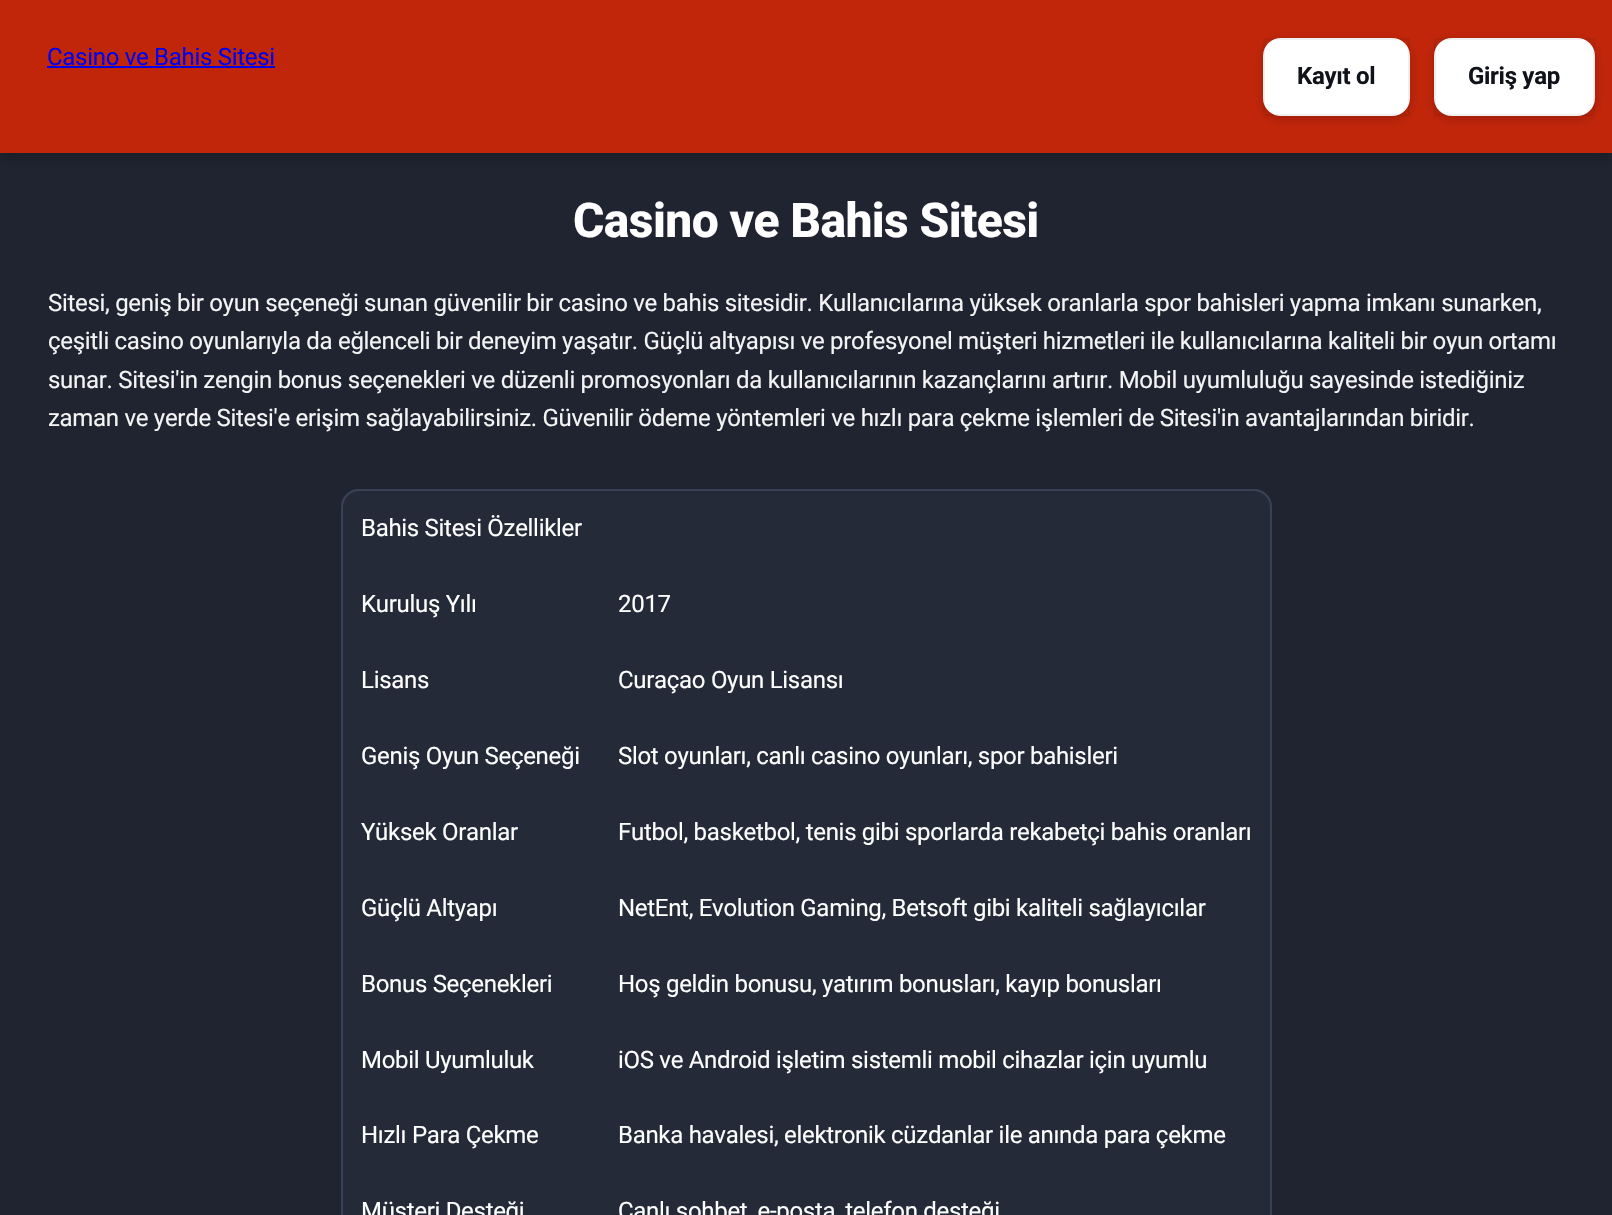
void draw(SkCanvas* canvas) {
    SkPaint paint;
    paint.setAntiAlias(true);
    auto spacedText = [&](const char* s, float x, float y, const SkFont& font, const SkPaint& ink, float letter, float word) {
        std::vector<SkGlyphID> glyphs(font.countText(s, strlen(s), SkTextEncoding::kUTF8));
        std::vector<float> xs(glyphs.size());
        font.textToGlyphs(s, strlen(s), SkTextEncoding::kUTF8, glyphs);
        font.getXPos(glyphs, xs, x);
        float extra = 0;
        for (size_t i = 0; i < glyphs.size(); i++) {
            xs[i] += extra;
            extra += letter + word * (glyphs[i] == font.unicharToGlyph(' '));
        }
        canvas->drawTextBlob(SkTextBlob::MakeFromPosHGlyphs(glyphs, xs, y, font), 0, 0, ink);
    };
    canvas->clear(0xFF1F2430);
    paint.setColor(0x40000000);
    paint.setMaskFilter(SkMaskFilter::MakeBlur(kNormal_SkBlurStyle, 7.5f));
    canvas->drawRect(SkRect::MakeXYWH(0, 3, 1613, 153), paint);
    paint.setMaskFilter(nullptr);
    paint.setColor(0xFFC2260A);
    canvas->drawRect(SkRect::MakeXYWH(0, 0, 1612, 153), paint);
    SkFont font1(fontMgr->matchFamilyStyle("Roboto", SkFontStyle::Normal()), 24);
    font1.setSubpixel(true);
    paint.setColor(0xFF0000EE);
    spacedText("Casino ve Bahis Sitesi", 47, 65, font1, paint, -0.3f, 0);
    canvas->drawRect(SkRect::MakeXYWH(47, 66, 228, 2), paint);
    paint.setColor(0x33000000);
    paint.setMaskFilter(SkMaskFilter::MakeBlur(kNormal_SkBlurStyle, 6));
    canvas->drawRoundRect(SkRect::MakeXYWH(1263, 41, 147, 78), 18, 18, paint);
    paint.setMaskFilter(nullptr);
    paint.setColor(0xFFFFFFFF);
    canvas->drawRoundRect(SkRect::MakeXYWH(1263, 38, 147, 78), 18, 18, paint);
    paint.setStyle(SkPaint::kStroke_Style);
    paint.setStrokeWidth(2);
    paint.setColor(0x0F000000);
    canvas->drawRect(SkRect::MakeXYWH(1264, 39, 145, 76), paint);
    SkFont font2(fontMgr->matchFamilyStyle("Roboto", SkFontStyle::Bold()), 24);
    font2.setSubpixel(true);
    paint.setStyle(SkPaint::kFill_Style);
    paint.setColor(0xFF10131A);
    spacedText("Kayıt ol", 1297, 84, font2, paint, -0.3f, 0);
    paint.setColor(0x33000000);
    paint.setMaskFilter(SkMaskFilter::MakeBlur(kNormal_SkBlurStyle, 6));
    canvas->drawRoundRect(SkRect::MakeXYWH(1434, 41, 161, 78), 18, 18, paint);
    paint.setMaskFilter(nullptr);
    paint.setColor(0xFFFFFFFF);
    canvas->drawRoundRect(SkRect::MakeXYWH(1434, 38, 161, 78), 18, 18, paint);
    paint.setStyle(SkPaint::kStroke_Style);
    paint.setColor(0x0F000000);
    canvas->drawRect(SkRect::MakeXYWH(1435, 39, 159, 76), paint);
    paint.setStyle(SkPaint::kFill_Style);
    paint.setColor(0xFF10131A);
    spacedText("Giriş yap", 1468, 84, font2, paint, -0.3f, 0);
    SkFont font3(fontMgr->matchFamilyStyle("Roboto", SkFontStyle(800, SkFontStyle::kNormal_Width, SkFontStyle::kUpright_Slant)), 48);
    font3.setSubpixel(true);
    paint.setColor(0xFFFFFFFF);
    spacedText("Casino ve Bahis Sitesi", 573, 237, font3, paint, -0.6f, 0);
    paint.setColor(0xFFF4F4F5);
    spacedText("Sitesi, geniş bir oyun seçeneği sunan güvenilir bir casino ve bahis sitesidir. Kullanıcılarına yüksek oranlarla spor bahisleri yapma imkanı sunarken,", 48, 311, font1, paint, -0.3f, 0);
    spacedText("çeşitli casino oyunlarıyla da eğlenceli bir deneyim yaşatır. Güçlü altyapısı ve profesyonel müşteri hizmetleri ile kullanıcılarına kaliteli bir oyun ortamı", 48, 349, font1, paint, -0.3f, 0);
    spacedText("sunar. Sitesi'in zengin bonus seçenekleri ve düzenli promosyonları da kullanıcılarının kazançlarını artırır. Mobil uyumluluğu sayesinde istediğiniz", 48, 388, font1, paint, -0.3f, 0);
    spacedText("zaman ve yerde Sitesi'e erişim sağlayabilirsiniz. Güvenilir ödeme yöntemleri ve hızlı para çekme işlemleri de Sitesi'in avantajlarından biridir.", 48, 426, font1, paint, -0.3f, 0);
    paint.setColor(0xFF242A38);
    canvas->drawRoundRect(SkRect::MakeXYWH(342, 490, 929, 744), 17, 17, paint);
    paint.setStyle(SkPaint::kStroke_Style);
    paint.setColor(0xFF394255);
    canvas->drawRoundRect(SkRect::MakeXYWH(342, 490, 929, 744), 17, 17, paint);
    paint.setStyle(SkPaint::kFill_Style);
    paint.setColor(0xFFFFFFFF);
    spacedText("Bahis Sitesi Özellikler", 361, 536, font1, paint, -0.3f, 0);
    spacedText("Kuruluş Yılı", 361, 612, font1, paint, -0.3f, 0);
    spacedText("2017", 618, 612, font1, paint, -0.3f, 0);
    spacedText("Lisans", 361, 688, font1, paint, -0.3f, 0);
    spacedText("Curaçao Oyun Lisansı", 618, 688, font1, paint, -0.3f, 0);
    spacedText("Geniş Oyun Seçeneği", 361, 764, font1, paint, -0.3f, 0);
    spacedText("Slot oyunları, canlı casino oyunları, spor bahisleri", 618, 764, font1, paint, -0.3f, 0);
    spacedText("Yüksek Oranlar", 361, 840, font1, paint, -0.3f, 0);
    spacedText("Futbol, basketbol, tenis gibi sporlarda rekabetçi bahis oranları", 618, 840, font1, paint, -0.3f, 0);
    spacedText("Güçlü Altyapı", 361, 916, font1, paint, -0.3f, 0);
    spacedText("NetEnt, Evolution Gaming, Betsoft gibi kaliteli sağlayıcılar", 618, 916, font1, paint, -0.3f, 0);
    spacedText("Bonus Seçenekleri", 361, 992, font1, paint, -0.3f, 0);
    spacedText("Hoş geldin bonusu, yatırım bonusları, kayıp bonusları", 618, 992, font1, paint, -0.3f, 0);
    spacedText("Mobil Uyumluluk", 361, 1068, font1, paint, -0.3f, 0);
    spacedText("iOS ve Android işletim sistemli mobil cihazlar için uyumlu", 618, 1068, font1, paint, -0.3f, 0);
    spacedText("Hızlı Para Çekme", 361, 1143, font1, paint, -0.3f, 0);
    spacedText("Banka havalesi, elektronik cüzdanlar ile anında para çekme", 618, 1143, font1, paint, -0.3f, 0);
    spacedText("Müşteri Desteği", 361, 1219, font1, paint, -0.3f, 0);
    spacedText("Canlı sohbet, e-posta, telefon desteği", 618, 1219, font1, paint, -0.3f, 0);
}
